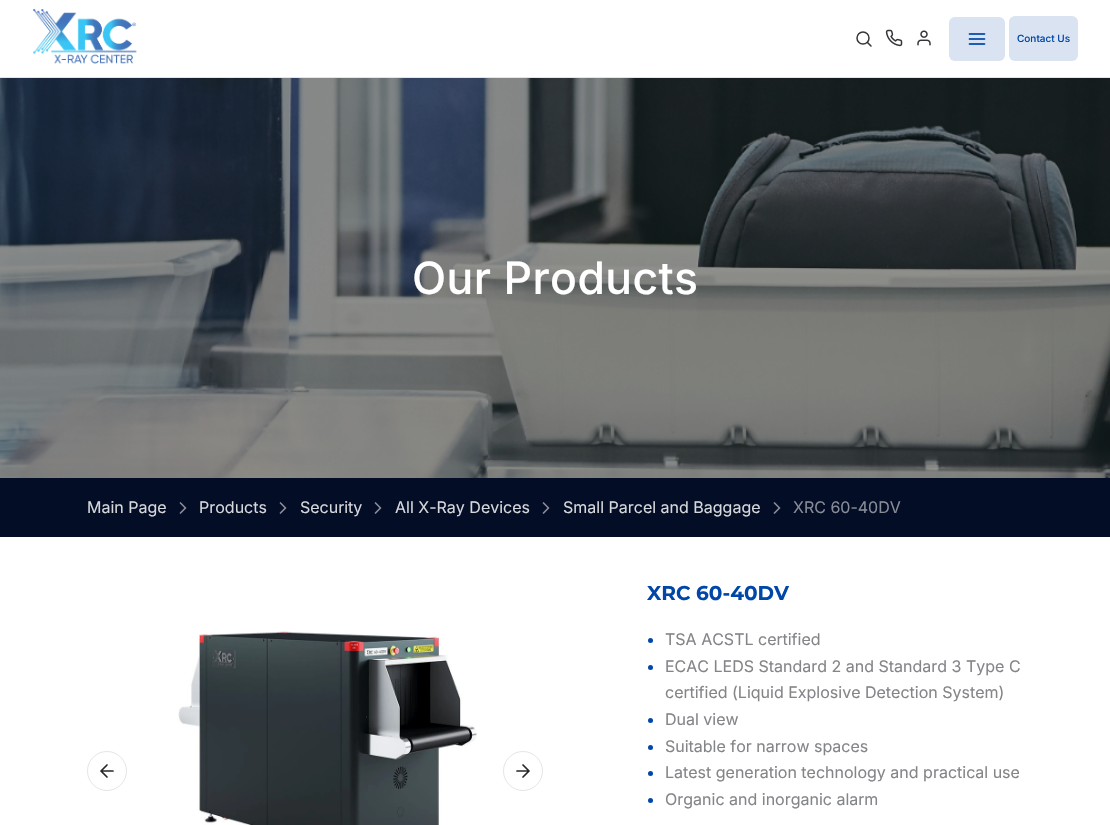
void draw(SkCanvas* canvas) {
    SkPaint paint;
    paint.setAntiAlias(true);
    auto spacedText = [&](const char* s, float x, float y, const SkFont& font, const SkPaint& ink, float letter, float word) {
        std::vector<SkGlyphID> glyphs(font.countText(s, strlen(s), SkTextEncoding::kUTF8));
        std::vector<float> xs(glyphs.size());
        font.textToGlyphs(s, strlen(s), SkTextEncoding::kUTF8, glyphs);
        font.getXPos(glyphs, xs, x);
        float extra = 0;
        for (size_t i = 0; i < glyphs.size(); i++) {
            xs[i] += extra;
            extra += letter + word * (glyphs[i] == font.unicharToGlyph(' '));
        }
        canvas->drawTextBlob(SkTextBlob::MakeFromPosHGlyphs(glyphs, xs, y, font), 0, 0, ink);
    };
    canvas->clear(0xFFFFFFFF);
    paint.setColor(0xFFE5E5E5);
    canvas->drawRect(SkRect::MakeXYWH(0, 77, 1110, 1), paint);
    canvas->drawImageRect(SkImages::DeferredFromEncodedData(SkData::MakeFromFileName("img1.png")), SkRect::MakeXYWH(33, 9, 104, 55), SkSamplingOptions());
    paint.setStyle(SkPaint::kStroke_Style);
    paint.setStrokeWidth(1.5f);
    paint.setColor(0xFF333539);
    canvas->drawCircle(863, 38, 6, paint);
    paint.setStrokeCap(SkPaint::kRound_Cap);
    paint.setStrokeJoin(SkPaint::kRound_Join);
    canvas->drawPath(SkPathBuilder().moveTo(871, 46).lineTo(867.5f, 42.5f).detach(), paint);
    canvas->drawImageRect(SkImages::DeferredFromEncodedData(SkData::MakeFromFileName("img2.png")), SkRect::MakeXYWH(885, 29, 18, 18), SkSamplingOptions());
    canvas->drawImageRect(SkImages::DeferredFromEncodedData(SkData::MakeFromFileName("img3.png")), SkRect::MakeXYWH(917, 30, 14, 16), SkSamplingOptions());
    paint.setStyle(SkPaint::kFill_Style);
    paint.setColor(0xFFD9E3F2);
    canvas->drawRoundRect(SkRect::MakeXYWH(949, 17, 56, 44), 6, 6, paint);
    canvas->drawImageRect(SkImages::DeferredFromEncodedData(SkData::MakeFromFileName("img4.png")), SkRect::MakeXYWH(968, 33, 18, 12), SkSamplingOptions());
    canvas->drawRoundRect(SkRect::MakeXYWH(1009, 16, 69, 45), 6, 6, paint);
    SkFont font1(fontMgr->matchFamilyStyle("Inter", SkFontStyle(500, SkFontStyle::kNormal_Width, SkFontStyle::kUpright_Slant)), 10);
    font1.setSubpixel(true);
    paint.setColor(0xFF0047A8);
    canvas->drawString("Contact Us", 1017, 42, font1, paint);
    canvas->drawImageRect(SkImages::DeferredFromEncodedData(SkData::MakeFromFileName("img5.png")), SkRect::MakeXYWH(0, 78, 1110, 400), SkSamplingOptions());
    SkFont font2(fontMgr->matchFamilyStyle("Inter", SkFontStyle(500, SkFontStyle::kNormal_Width, SkFontStyle::kUpright_Slant)), 44.5f);
    font2.setSubpixel(true);
    paint.setColor(0xFFFFFFFF);
    spacedText("Our Products", 412, 294, font2, paint, 0.4f, 0);
    paint.setColor(0xFF030D26);
    canvas->drawRect(SkRect::MakeXYWH(0, 478, 1110, 59), paint);
    SkFont font3(fontMgr->matchFamilyStyle("Inter", SkFontStyle::Normal()), 16);
    font3.setSubpixel(true);
    paint.setColor(0xFFD7D8DB);
    canvas->drawString("Main Page", 87, 513, font3, paint);
    canvas->drawImageRect(SkImages::DeferredFromEncodedData(SkData::MakeFromFileName("img6.png")), SkRect::MakeXYWH(179, 502, 8, 12), SkSamplingOptions());
    canvas->drawString("Products", 199, 513, font3, paint);
    canvas->drawImageRect(SkImages::DeferredFromEncodedData(SkData::MakeFromFileName("img6.png")), SkRect::MakeXYWH(279, 502, 8, 12), SkSamplingOptions());
    canvas->drawString("Security", 300, 513, font3, paint);
    canvas->drawImageRect(SkImages::DeferredFromEncodedData(SkData::MakeFromFileName("img6.png")), SkRect::MakeXYWH(374, 502, 8, 12), SkSamplingOptions());
    canvas->drawString("All X-Ray Devices", 395, 513, font3, paint);
    canvas->drawImageRect(SkImages::DeferredFromEncodedData(SkData::MakeFromFileName("img6.png")), SkRect::MakeXYWH(542, 502, 8, 12), SkSamplingOptions());
    canvas->drawString("Small Parcel and Baggage", 563, 513, font3, paint);
    canvas->drawImageRect(SkImages::DeferredFromEncodedData(SkData::MakeFromFileName("img6.png")), SkRect::MakeXYWH(773, 502, 8, 12), SkSamplingOptions());
    paint.setColor(0xFF888C97);
    canvas->drawString("XRC 60-40DV", 793, 513, font3, paint);
    canvas->drawImageRect(SkImages::DeferredFromEncodedData(SkData::MakeFromFileName("img7.png")), SkRect::MakeXYWH(178, 631, 299, 194), SkSamplingOptions());
    paint.setStyle(SkPaint::kStroke_Style);
    paint.setStrokeWidth(1);
    paint.setStrokeCap(SkPaint::kButt_Cap);
    paint.setStrokeJoin(SkPaint::kMiter_Join);
    paint.setColor(0xFFE5E5E5);
    canvas->drawCircle(107, 771, 19.5f, paint);
    paint.setStrokeWidth(1.7f);
    paint.setStrokeCap(SkPaint::kRound_Cap);
    paint.setStrokeJoin(SkPaint::kRound_Join);
    paint.setColor(0xFF262829);
    canvas->drawPath(SkPathBuilder().moveTo(113, 771).lineTo(101, 771).moveTo(107, 777).lineTo(101, 771).lineTo(107, 765).detach(), paint);
    paint.setStrokeWidth(1);
    paint.setStrokeCap(SkPaint::kButt_Cap);
    paint.setStrokeJoin(SkPaint::kMiter_Join);
    paint.setColor(0xFFE5E5E5);
    canvas->drawCircle(523, 771, 19.5f, paint);
    paint.setStrokeWidth(1.7f);
    paint.setStrokeCap(SkPaint::kRound_Cap);
    paint.setStrokeJoin(SkPaint::kRound_Join);
    paint.setColor(0xFF262829);
    canvas->drawPath(SkPathBuilder().moveTo(517, 771).lineTo(529, 771).moveTo(523, 765).lineTo(529, 771).lineTo(523, 777).detach(), paint);
    SkFont font4(fontMgr->matchFamilyStyle("Montserrat", SkFontStyle::Bold()), 20);
    font4.setSubpixel(true);
    paint.setStyle(SkPaint::kFill_Style);
    paint.setColor(0xFF0047A8);
    canvas->drawString("XRC 60-40DV", 647, 600, font4, paint);
    canvas->drawCircle(650.5f, 640.5f, 2.5f, paint);
    paint.setColor(0xFF838589);
    canvas->drawString("TSA ACSTL certified", 665, 645, font3, paint);
    paint.setColor(0xFF0047A8);
    canvas->drawCircle(650.5f, 667.5f, 2.5f, paint);
    paint.setColor(0xFF838589);
    canvas->drawString("ECAC LEDS Standard 2 and Standard 3 Type C", 665, 672, font3, paint);
    canvas->drawString("certified (Liquid Explosive Detection System)", 665, 698, font3, paint);
    paint.setColor(0xFF0047A8);
    canvas->drawCircle(650.5f, 720.5f, 2.5f, paint);
    paint.setColor(0xFF838589);
    canvas->drawString("Dual view", 665, 725, font3, paint);
    paint.setColor(0xFF0047A8);
    canvas->drawCircle(650.5f, 747.5f, 2.5f, paint);
    paint.setColor(0xFF838589);
    canvas->drawString("Suitable for narrow spaces", 665, 752, font3, paint);
    paint.setColor(0xFF0047A8);
    canvas->drawCircle(650.5f, 773.5f, 2.5f, paint);
    paint.setColor(0xFF838589);
    canvas->drawString("Latest generation technology and practical use", 665, 778, font3, paint);
    paint.setColor(0xFF0047A8);
    canvas->drawCircle(650.5f, 800.5f, 2.5f, paint);
    paint.setColor(0xFF838589);
    canvas->drawString("Organic and inorganic alarm", 665, 805, font3, paint);
}
